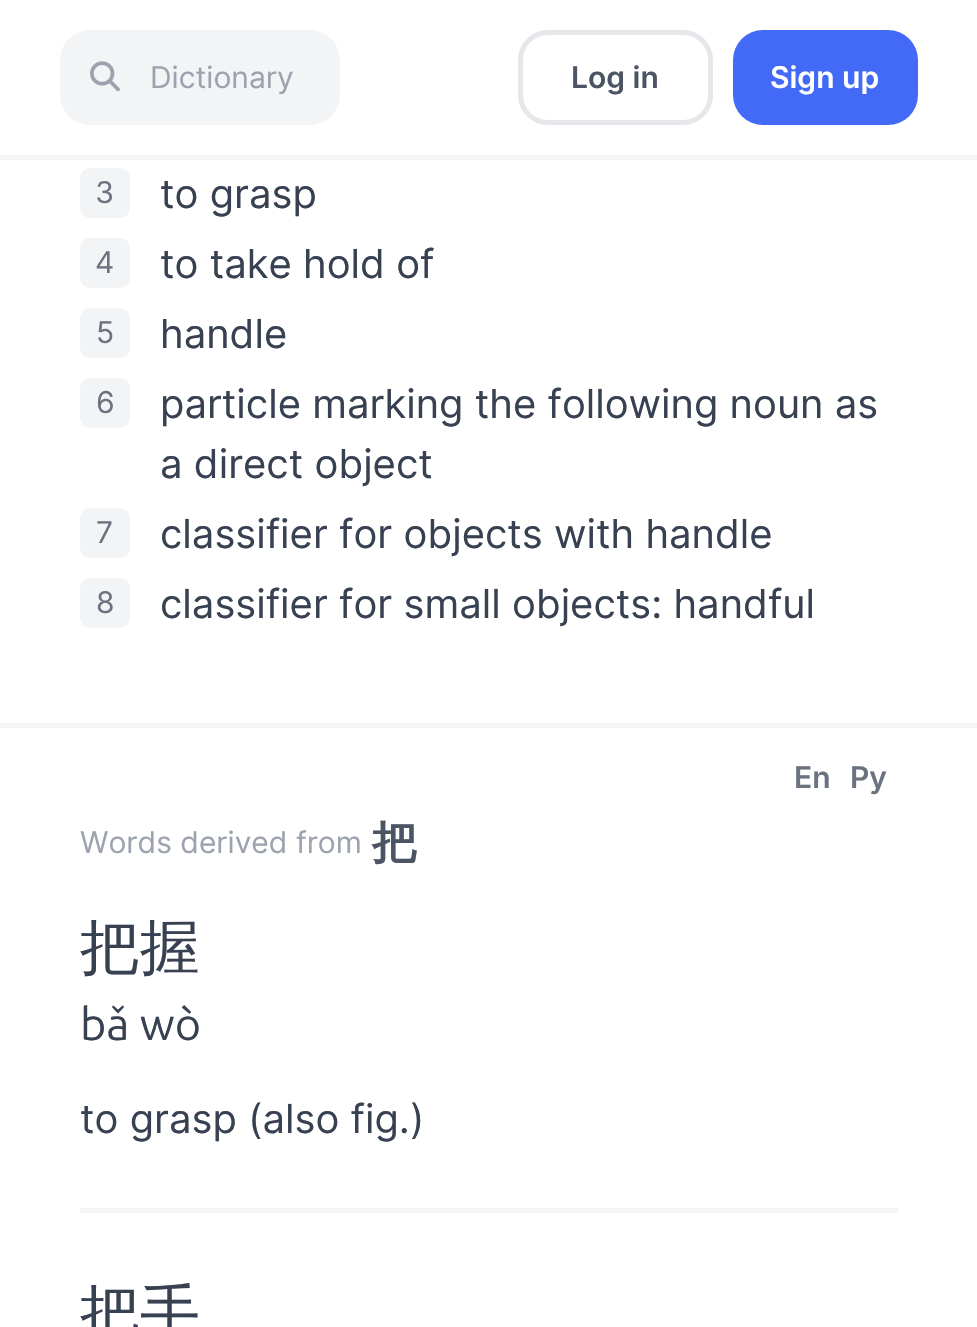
void draw(SkCanvas* canvas) {
    SkPaint paint;
    paint.setAntiAlias(true);
    canvas->clear(0xFFFFFFFF);
    paint.setColor(0xFFF3F4F6);
    canvas->drawRect(SkRect::MakeXYWH(0, 155, 977, 5), paint);
    canvas->drawRoundRect(SkRect::MakeXYWH(60, 30, 280, 95), 30, 30, paint);
    canvas->drawImageRect(SkImages::DeferredFromEncodedData(SkData::MakeFromFileName("img1.png")), SkRect::MakeXYWH(90, 61, 30, 31), SkSamplingOptions());
    SkFont font1(fontMgr->matchFamilyStyle("Inter", SkFontStyle::Normal()), 30);
    font1.setSubpixel(true);
    paint.setColor(0xFF9CA3AF);
    canvas->drawString("Dictionary", 150, 88, font1, paint);
    paint.setStyle(SkPaint::kStroke_Style);
    paint.setStrokeWidth(5);
    paint.setColor(0xFFE5E7EB);
    canvas->drawRoundRect(SkRect::MakeXYWH(520.5f, 32.5f, 190, 90), 27.5f, 27.5f, paint);
    SkFont font2(fontMgr->matchFamilyStyle("Inter", SkFontStyle(600, SkFontStyle::kNormal_Width, SkFontStyle::kUpright_Slant)), 30);
    font2.setSubpixel(true);
    paint.setStyle(SkPaint::kFill_Style);
    paint.setColor(0xFF4B5563);
    canvas->drawString("Log in", 571, 88, font2, paint);
    paint.setColor(0xFF426AF7);
    canvas->drawRoundRect(SkRect::MakeXYWH(733, 30, 185, 95), 30, 30, paint);
    paint.setColor(0xFFFFFFFF);
    canvas->drawString("Sign up", 770, 88, font2, paint);
    paint.setColor(0xFFF3F4F6);
    canvas->drawRoundRect(SkRect::MakeXYWH(80, 168, 50, 50), 10, 10, paint);
    paint.setColor(0xFF6B7280);
    canvas->drawString("3", 95, 203, font1, paint);
    SkFont font3(fontMgr->matchFamilyStyle("Inter", SkFontStyle::Normal()), 40);
    font3.setSubpixel(true);
    paint.setColor(0xFF374151);
    canvas->drawString("to grasp", 160, 208, font3, paint);
    paint.setColor(0xFFF3F4F6);
    canvas->drawRoundRect(SkRect::MakeXYWH(80, 238, 50, 50), 10, 10, paint);
    paint.setColor(0xFF6B7280);
    canvas->drawString("4", 95, 273, font1, paint);
    paint.setColor(0xFF374151);
    canvas->drawString("to take hold of", 160, 278, font3, paint);
    paint.setColor(0xFFF3F4F6);
    canvas->drawRoundRect(SkRect::MakeXYWH(80, 308, 50, 50), 10, 10, paint);
    paint.setColor(0xFF6B7280);
    canvas->drawString("5", 96, 343, font1, paint);
    paint.setColor(0xFF374151);
    canvas->drawString("handle", 160, 348, font3, paint);
    paint.setColor(0xFFF3F4F6);
    canvas->drawRoundRect(SkRect::MakeXYWH(80, 378, 50, 50), 10, 10, paint);
    paint.setColor(0xFF6B7280);
    canvas->drawString("6", 96, 413, font1, paint);
    paint.setColor(0xFF374151);
    canvas->drawString("particle marking the following noun as", 160, 418, font3, paint);
    canvas->drawString("a direct object", 160, 478, font3, paint);
    paint.setColor(0xFFF3F4F6);
    canvas->drawRoundRect(SkRect::MakeXYWH(80, 508, 50, 50), 10, 10, paint);
    paint.setColor(0xFF6B7280);
    canvas->drawString("7", 96, 543, font1, paint);
    paint.setColor(0xFF374151);
    canvas->drawString("classifier for objects with handle", 160, 548, font3, paint);
    paint.setColor(0xFFF3F4F6);
    canvas->drawRoundRect(SkRect::MakeXYWH(80, 578, 50, 50), 10, 10, paint);
    paint.setColor(0xFF6B7280);
    canvas->drawString("8", 96, 613, font1, paint);
    paint.setColor(0xFF374151);
    canvas->drawString("classifier for small objects: handful", 160, 618, font3, paint);
    paint.setColor(0xFFF3F4F6);
    canvas->drawRect(SkRect::MakeXYWH(0, 723, 977, 5), paint);
    paint.setColor(0xFF6B7280);
    canvas->drawString("En", 794, 788, font2, paint);
    canvas->drawString("Py", 850, 788, font2, paint);
    paint.setColor(0xFF9CA3AF);
    canvas->drawString("Words derived from", 80, 853, font1, paint);
    SkFont font4(fontMgr->matchFamilyStyle("WenQuanYi Zen Hei", SkFontStyle::Bold()), 45);
    font4.setSubpixel(true);
    paint.setColor(0xFF4B5563);
    canvas->drawString("把", 372, 858, font4, paint);
    paint.setColor(0xFFF3F4F6);
    canvas->drawRect(SkRect::MakeXYWH(80, 1208, 818, 5), paint);
    SkFont font5(fontMgr->matchFamilyStyle("WenQuanYi Zen Hei", SkFontStyle(500, SkFontStyle::kNormal_Width, SkFontStyle::kUpright_Slant)), 60);
    font5.setSubpixel(true);
    paint.setColor(0xFF374151);
    canvas->drawString("把握", 80, 968, font5, paint);
    SkFont font6(fontMgr->matchFamilyStyle("Ubuntu", SkFontStyle::Normal()), 45);
    font6.setSubpixel(true);
    canvas->drawString("bǎ wò", 80, 1040, font6, paint);
    canvas->drawString("to grasp (also fig.)", 80, 1133, font3, paint);
    canvas->drawString("把手", 80, 1333, font5, paint);
}
